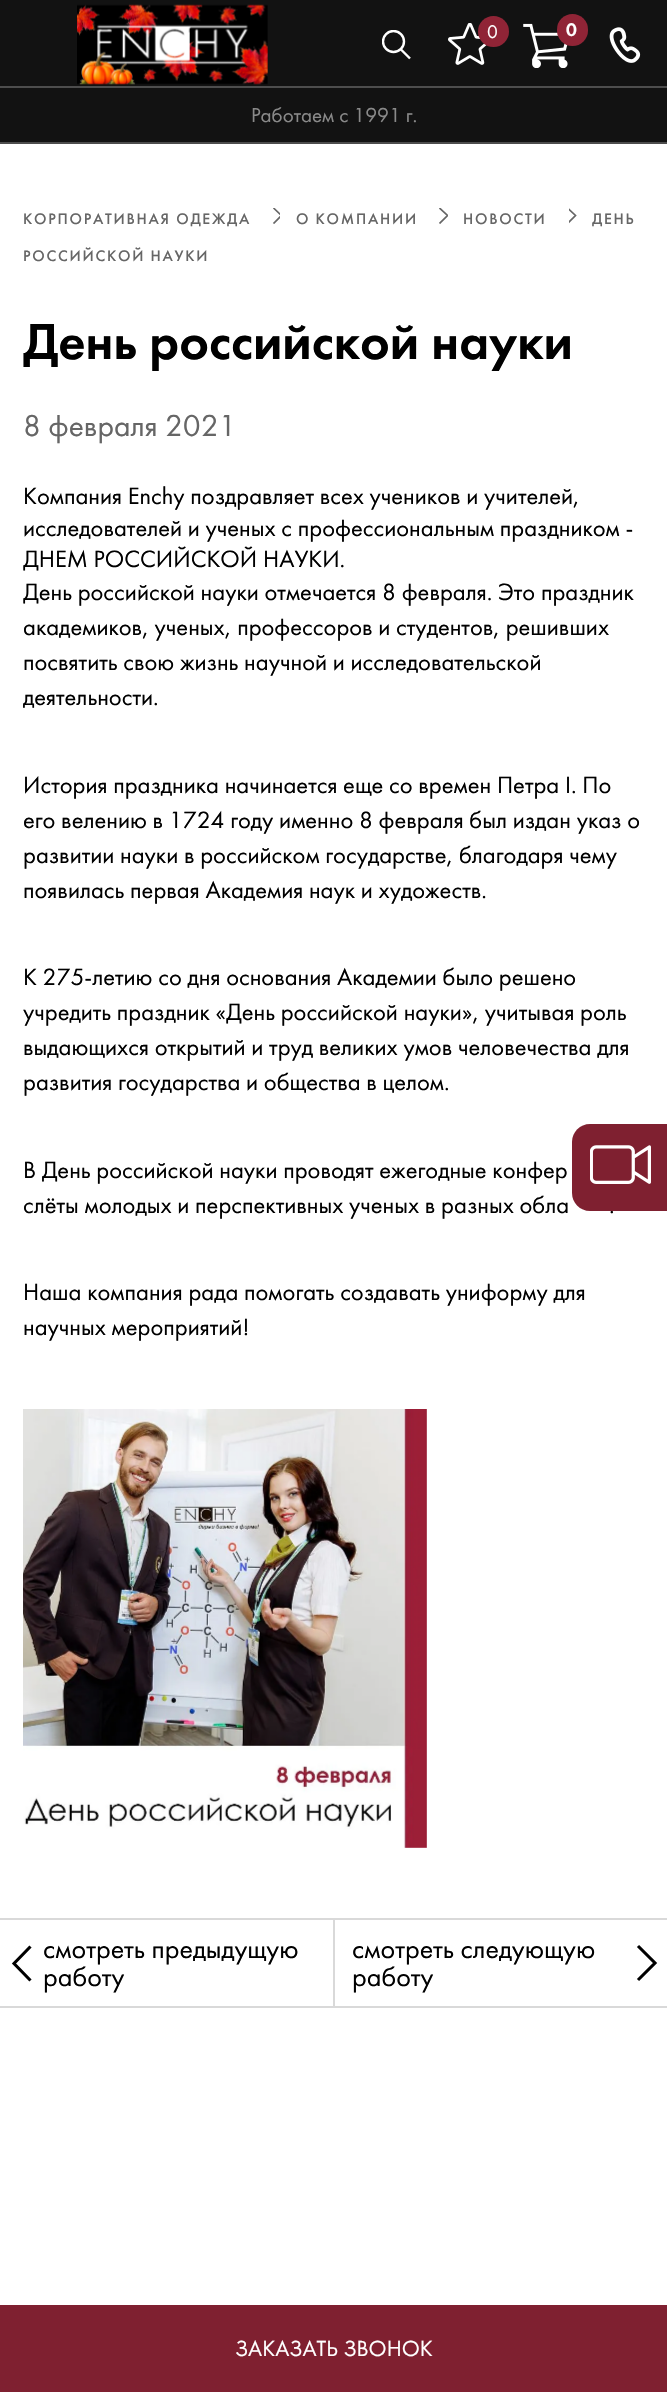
void draw(SkCanvas* canvas) {
    SkPaint paint;
    paint.setAntiAlias(true);
    auto spacedText = [&](const char* s, float x, float y, const SkFont& font, const SkPaint& ink, float letter, float word) {
        std::vector<SkGlyphID> glyphs(font.countText(s, strlen(s), SkTextEncoding::kUTF8));
        std::vector<float> xs(glyphs.size());
        font.textToGlyphs(s, strlen(s), SkTextEncoding::kUTF8, glyphs);
        font.getXPos(glyphs, xs, x);
        float extra = 0;
        for (size_t i = 0; i < glyphs.size(); i++) {
            xs[i] += extra;
            extra += letter + word * (glyphs[i] == font.unicharToGlyph(' '));
        }
        canvas->drawTextBlob(SkTextBlob::MakeFromPosHGlyphs(glyphs, xs, y, font), 0, 0, ink);
    };
    canvas->clear(0xFFFFFFFF);
    paint.setColor(0xFF121212);
    canvas->drawRect(SkRect::MakeXYWH(0, 0, 667, 86), paint);
    paint.setColor(0xFF4D4D4D);
    canvas->drawRect(SkRect::MakeXYWH(0, 86, 667, 2), paint);
    canvas->save();
    canvas->clipRect(SkRect::MakeXYWH(382, 30, 29, 30));
    paint.setStyle(SkPaint::kStroke_Style);
    paint.setStrokeWidth(2.4f);
    paint.setColor(0xFFFFFFFF);
    canvas->drawCircle(393.5f, 41.5f, 10.5f, paint);
    canvas->restore();
    canvas->drawPath(SkPathBuilder().moveTo(400.5f, 49).lineTo(410, 58.5f).detach(), paint);
    canvas->drawImageRect(SkImages::DeferredFromEncodedData(SkData::MakeFromFileName("img1.png")), SkRect::MakeXYWH(448, 23, 39, 42), SkSamplingOptions());
    paint.setStyle(SkPaint::kFill_Style);
    paint.setColor(0xFF902436);
    canvas->drawCircle(493.5f, 31.5f, 15.5f, paint);
    SkFont font1(fontMgr->matchFamilyStyle("Futura PT", SkFontStyle::Normal()), 19);
    font1.setSubpixel(true);
    paint.setColor(0xFFFFFFFF);
    spacedText("0", 487, 38, font1, paint, 1.75f, 0);
    canvas->drawImageRect(SkImages::DeferredFromEncodedData(SkData::MakeFromFileName("img2.png")), SkRect::MakeXYWH(523, 23, 45, 45), SkSamplingOptions());
    paint.setColor(0xFF902436);
    canvas->drawRoundRect(SkRect::MakeXYWH(557, 14, 31, 32), 15.5f, 15.5f, paint);
    SkFont font2(fontMgr->matchFamilyStyle("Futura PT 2", SkFontStyle(500, SkFontStyle::kNormal_Width, SkFontStyle::kUpright_Slant)), 19);
    font2.setSubpixel(true);
    paint.setColor(0xFFFFFFFF);
    spacedText("0", 566, 36, font2, paint, 1.75f, 0);
    canvas->drawImageRect(SkImages::DeferredFromEncodedData(SkData::MakeFromFileName("img3.png")), SkRect::MakeXYWH(609, 27, 32, 36), SkSamplingOptions());
    paint.setColor(0xFF7F2030);
    canvas->drawRect(SkRect::MakeXYWH(0, 2305, 667, 87), paint);
    SkFont font3(fontMgr->matchFamilyStyle("Futura PT", SkFontStyle::Normal()), 22.75f);
    font3.setSubpixel(true);
    paint.setColor(0xFFFFFFFF);
    canvas->drawString("ЗАКАЗАТЬ ЗВОНОК", 235, 2356, font3, paint);
    canvas->drawImageRect(SkImages::DeferredFromEncodedData(SkData::MakeFromFileName("img4.png")), SkRect::MakeXYWH(77, 4, 191, 81), SkSamplingOptions());
    paint.setColor(0xFF121212);
    canvas->drawRect(SkRect::MakeXYWH(0, 88, 667, 54), paint);
    paint.setColor(0xFF4D4D4D);
    canvas->drawRect(SkRect::MakeXYWH(0, 142, 667, 2), paint);
    SkFont font4(fontMgr->matchFamilyStyle("Futura PT", SkFontStyle::Normal()), 21);
    font4.setSubpixel(true);
    paint.setColor(0xFF898989);
    canvas->drawString("Работаем с 1991 г.", 251, 122, font4, paint);
    SkFont font5(fontMgr->matchFamilyStyle("Futura PT", SkFontStyle(500, SkFontStyle::kNormal_Width, SkFontStyle::kUpright_Slant)), 15.75f);
    font5.setSubpixel(true);
    paint.setColor(0xFF666666);
    spacedText("КОРПОРАТИВНАЯ ОДЕЖДА", 23, 224, font5, paint, 1.75f, 0);
    canvas->save();
    canvas->clipRect(SkRect::MakeXYWH(271, 208, 9, 16));
    paint.setStyle(SkPaint::kStroke_Style);
    paint.setStrokeWidth(1.7f);
    canvas->drawPath(SkPathBuilder().moveTo(273.5f, 223.5f).lineTo(281.5f, 215.5f).lineTo(273.5f, 208).detach(), paint);
    canvas->restore();
    paint.setStyle(SkPaint::kFill_Style);
    spacedText("О КОМПАНИИ", 296, 224, font5, paint, 1.75f, 0);
    canvas->save();
    canvas->clipRect(SkRect::MakeXYWH(439, 208, 9, 16));
    paint.setStyle(SkPaint::kStroke_Style);
    canvas->drawPath(SkPathBuilder().moveTo(439.5f, 223.5f).lineTo(447.5f, 215.5f).lineTo(439.5f, 208).detach(), paint);
    canvas->restore();
    paint.setStyle(SkPaint::kFill_Style);
    spacedText("НОВОСТИ", 463, 224, font5, paint, 1.75f, 0);
    canvas->save();
    canvas->clipRect(SkRect::MakeXYWH(569, 208, 9, 16));
    paint.setStyle(SkPaint::kStroke_Style);
    canvas->drawPath(SkPathBuilder().moveTo(567.5f, 223.5f).lineTo(575.5f, 215.5f).lineTo(567.5f, 208).detach(), paint);
    canvas->restore();
    paint.setStyle(SkPaint::kFill_Style);
    spacedText("ДЕНЬ", 592, 224, font5, paint, 1.75f, 0);
    spacedText("РОССИЙСКОЙ НАУКИ", 23, 261, font5, paint, 1.75f, 0);
    SkFont font6(fontMgr->matchFamilyStyle("Futura PT 2", SkFontStyle(500, SkFontStyle::kNormal_Width, SkFontStyle::kUpright_Slant)), 52.5f);
    font6.setSubpixel(true);
    paint.setColor(0xFF000000);
    canvas->drawString("День российской науки", 23, 359, font6, paint);
    SkFont font7(fontMgr->matchFamilyStyle("Futura PT", SkFontStyle::Normal()), 31.5f);
    font7.setSubpixel(true);
    paint.setColor(0xFF666666);
    canvas->drawString("8 февраля 2021", 23, 436, font7, paint);
    SkFont font8(fontMgr->matchFamilyStyle("Futura PT", SkFontStyle::Normal()), 24.5f);
    font8.setSubpixel(true);
    paint.setColor(0xFF000000);
    canvas->drawString("Компания Enchy поздравляет всех учеников и учителей,", 23, 504, font8, paint);
    canvas->drawString("исследователей и ученых с профессиональным праздником -", 23, 536, font8, paint);
    canvas->drawString("ДНЕМ РОССИЙСКОЙ НАУКИ.", 23, 567, font8, paint);
    canvas->drawString("День российской науки отмечается 8 февраля. Это праздник", 23, 600, font8, paint);
    canvas->drawString("академиков, ученых, профессоров и студентов, решивших", 23, 635, font8, paint);
    canvas->drawString("посвятить свою жизнь научной и исследовательской", 23, 670, font8, paint);
    canvas->drawString("деятельности.", 23, 705, font8, paint);
    canvas->drawString("История праздника начинается еще со времен Петра I. По", 23, 793, font8, paint);
    canvas->drawString("его велению в 1724 году именно 8 февраля был издан указ о", 23, 828, font8, paint);
    canvas->drawString("развитии науки в российском государстве, благодаря чему", 23, 863, font8, paint);
    canvas->drawString("появилась первая Академия наук и художеств.", 23, 898, font8, paint);
    canvas->drawString("К 275-летию со дня основания Академии было решено", 23, 985, font8, paint);
    canvas->drawString("учредить праздник «День российской науки», учитывая роль", 23, 1020, font8, paint);
    canvas->drawString("выдающихся открытий и труд великих умов человечества для", 23, 1055, font8, paint);
    canvas->drawString("развития государства и общества в целом.", 23, 1090, font8, paint);
    canvas->drawString("В День российской науки проводят ежегодные конфер", 23, 1178, font8, paint);
    canvas->drawString("слёты молодых и перспективных ученых в разных обла", 23, 1213, font8, paint);
    canvas->drawString(".", 609, 1213, font8, paint);
    canvas->drawString("Наша компания рада помогать создавать униформу для", 23, 1300, font8, paint);
    canvas->drawString("научных мероприятий!", 23, 1335, font8, paint);
    canvas->drawImageRect(SkImages::DeferredFromEncodedData(SkData::MakeFromFileName("img5.png")), SkRect::MakeXYWH(23, 1409, 404, 439), SkSamplingOptions());
    paint.setColor(0xFFD9D9D9);
    canvas->drawRect(SkRect::MakeXYWH(0, 1918, 667, 2), paint);
    canvas->drawRect(SkRect::MakeXYWH(333, 1920, 2, 86), paint);
    paint.setStyle(SkPaint::kStroke_Style);
    paint.setStrokeWidth(3.1f);
    paint.setColor(0xFF000000);
    canvas->drawPath(SkPathBuilder().moveTo(30.5f, 1946.5f).lineTo(14, 1963.5f).lineTo(30.5f, 1980.5f).detach(), paint);
    SkFont font9(fontMgr->matchFamilyStyle("Futura PT", SkFontStyle::Normal()), 28);
    font9.setSubpixel(true);
    paint.setStyle(SkPaint::kFill_Style);
    canvas->drawString("смотреть предыдущую", 43, 1958, font9, paint);
    canvas->drawString("работу", 43, 1986, font9, paint);
    canvas->drawString("смотреть следующую", 352, 1958, font9, paint);
    canvas->drawString("работу", 352, 1986, font9, paint);
    paint.setStyle(SkPaint::kStroke_Style);
    canvas->drawPath(SkPathBuilder().moveTo(638, 1980).lineTo(655, 1963).lineTo(638, 1946).detach(), paint);
    paint.setStyle(SkPaint::kFill_Style);
    paint.setColor(0xFF7F2030);
    canvas->drawPath(SkPathBuilder().moveTo(590, 1124).lineTo(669, 1124).lineTo(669, 1211).lineTo(590, 1211).cubicTo(580, 1211, 572, 1203, 572, 1193).lineTo(572, 1142).cubicTo(572, 1132, 580, 1124, 590, 1124).close().detach(), paint);
    canvas->drawImageRect(SkImages::DeferredFromEncodedData(SkData::MakeFromFileName("img6.png")), SkRect::MakeXYWH(590, 1145, 61, 39), SkSamplingOptions());
    paint.setColor(0xFFD9D9D9);
    canvas->drawRect(SkRect::MakeXYWH(0, 2006, 667, 2), paint);
}
